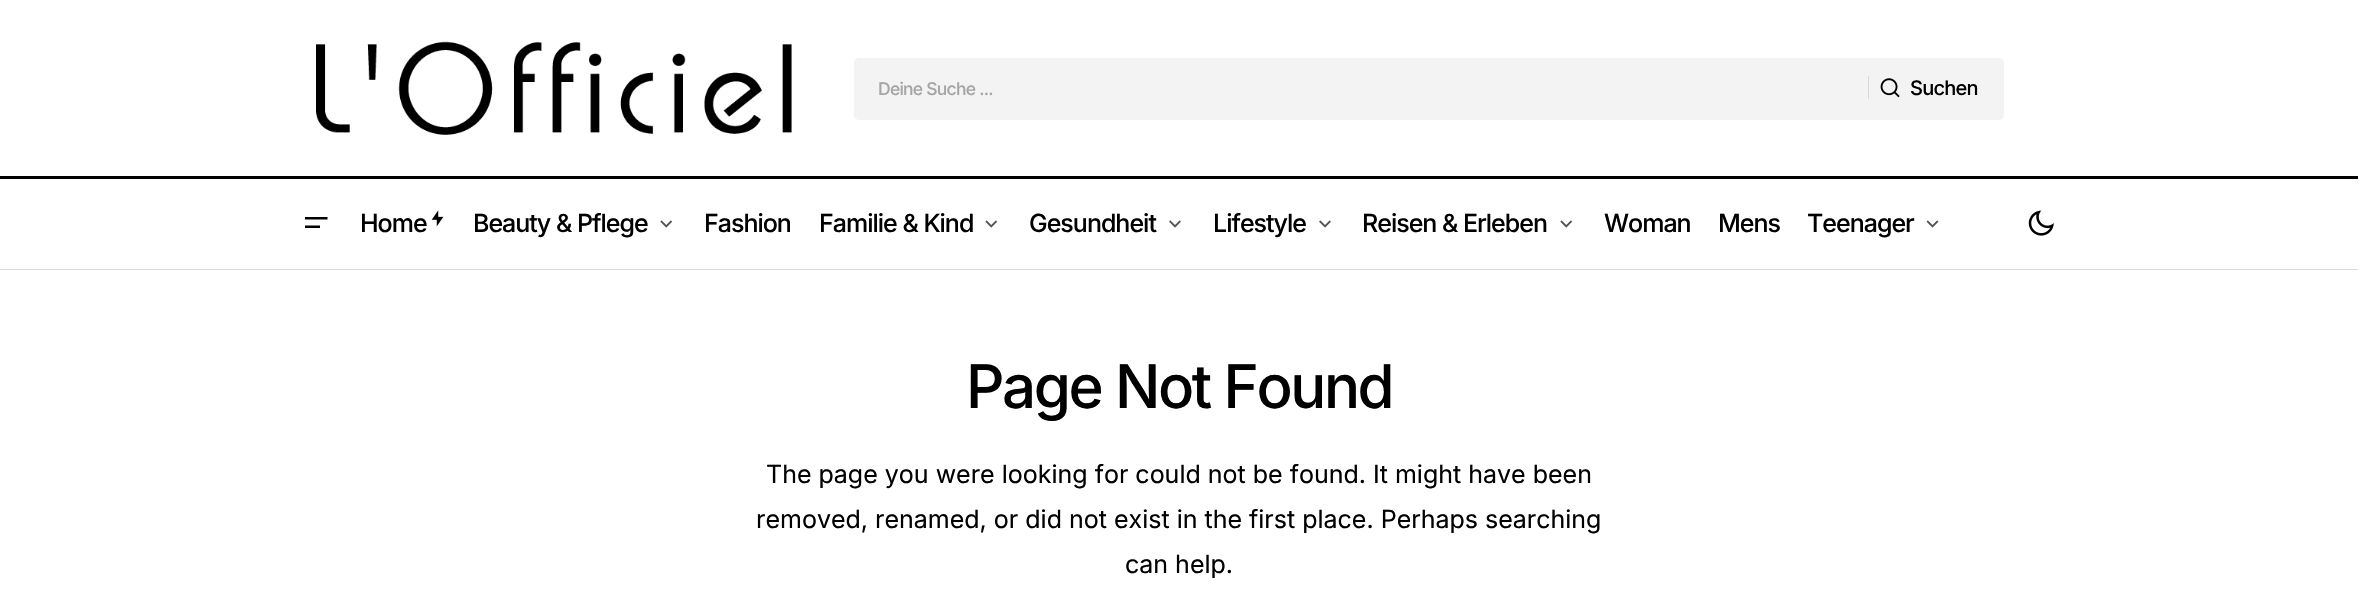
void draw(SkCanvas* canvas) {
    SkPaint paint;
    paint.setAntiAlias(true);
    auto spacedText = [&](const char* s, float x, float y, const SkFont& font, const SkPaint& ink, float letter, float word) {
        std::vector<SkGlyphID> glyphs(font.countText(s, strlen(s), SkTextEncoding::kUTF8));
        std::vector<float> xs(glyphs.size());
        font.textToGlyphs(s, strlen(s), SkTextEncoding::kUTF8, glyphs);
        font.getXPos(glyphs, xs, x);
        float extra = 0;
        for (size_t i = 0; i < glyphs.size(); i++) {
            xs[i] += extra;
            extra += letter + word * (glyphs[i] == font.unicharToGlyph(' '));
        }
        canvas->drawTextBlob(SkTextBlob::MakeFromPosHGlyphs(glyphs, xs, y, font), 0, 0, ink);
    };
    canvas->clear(0xFFFFFFFF);
    canvas->drawImageRect(SkImages::DeferredFromEncodedData(SkData::MakeFromFileName("img1.png")), SkRect::MakeXYWH(316, 41, 476, 94), SkSamplingOptions());
    paint.setColor(0xFFF3F3F3);
    canvas->drawRoundRect(SkRect::MakeXYWH(854, 58, 1150, 62), 5, 5, paint);
    SkFont font1(fontMgr->matchFamilyStyle("Inter", SkFontStyle(500, SkFontStyle::kNormal_Width, SkFontStyle::kUpright_Slant)), 17.5f);
    font1.setSubpixel(true);
    paint.setColor(0xFFA5A5A5);
    spacedText("Deine Suche ...", 878, 95, font1, paint, -0.75f, 0);
    paint.setColor(0xFFD9D9D9);
    canvas->drawRect(SkRect::MakeXYWH(1868, 76, 1, 23), paint);
    canvas->drawImageRect(SkImages::DeferredFromEncodedData(SkData::MakeFromFileName("img2.png")), SkRect::MakeXYWH(1880, 78, 20, 20), SkSamplingOptions());
    SkFont font2(fontMgr->matchFamilyStyle("Inter", SkFontStyle(500, SkFontStyle::kNormal_Width, SkFontStyle::kUpright_Slant)), 20);
    font2.setSubpixel(true);
    paint.setColor(0xFF000000);
    spacedText("Suchen", 1910, 95, font2, paint, -0.75f, 0);
    canvas->drawRect(SkRect::MakeXYWH(0, 176, 2358, 3), paint);
    canvas->drawPath(SkPathBuilder().moveTo(305, 217).lineTo(327.5f, 217).lineTo(327.5f, 219.5f).lineTo(305, 219.5f).close().moveTo(305, 225.5f).lineTo(320, 225.5f).lineTo(320, 228).lineTo(305, 228).close().detach(), paint);
    SkFont font3(fontMgr->matchFamilyStyle("Inter", SkFontStyle(500, SkFontStyle::kNormal_Width, SkFontStyle::kUpright_Slant)), 25);
    font3.setSubpixel(true);
    spacedText("Home", 360, 232, font3, paint, -1, 0);
    canvas->drawImageRect(SkImages::DeferredFromEncodedData(SkData::MakeFromFileName("img3.png")), SkRect::MakeXYWH(431, 210, 13, 17), SkSamplingOptions());
    spacedText("Beauty & Pflege", 473, 232, font3, paint, -1, 0);
    canvas->drawImageRect(SkImages::DeferredFromEncodedData(SkData::MakeFromFileName("img4.png")), SkRect::MakeXYWH(660, 220, 13, 8), SkSamplingOptions());
    spacedText("Fashion", 704, 232, font3, paint, -1, 0);
    spacedText("Familie & Kind", 819, 232, font3, paint, -1, 0);
    canvas->drawImageRect(SkImages::DeferredFromEncodedData(SkData::MakeFromFileName("img4.png")), SkRect::MakeXYWH(985, 220, 13, 8), SkSamplingOptions());
    spacedText("Gesundheit", 1029, 232, font3, paint, -1, 0);
    canvas->drawImageRect(SkImages::DeferredFromEncodedData(SkData::MakeFromFileName("img5.png")), SkRect::MakeXYWH(1169, 220, 12, 8), SkSamplingOptions());
    spacedText("Lifestyle", 1213, 232, font3, paint, -1, 0);
    canvas->drawImageRect(SkImages::DeferredFromEncodedData(SkData::MakeFromFileName("img5.png")), SkRect::MakeXYWH(1319, 220, 12, 8), SkSamplingOptions());
    spacedText("Reisen & Erleben", 1362, 232, font3, paint, -1, 0);
    canvas->drawImageRect(SkImages::DeferredFromEncodedData(SkData::MakeFromFileName("img4.png")), SkRect::MakeXYWH(1560, 220, 13, 8), SkSamplingOptions());
    spacedText("Woman", 1604, 232, font3, paint, -1, 0);
    spacedText("Mens", 1718, 232, font3, paint, -1, 0);
    spacedText("Teenager", 1807, 232, font3, paint, -1, 0);
    canvas->drawImageRect(SkImages::DeferredFromEncodedData(SkData::MakeFromFileName("img6.png")), SkRect::MakeXYWH(1926, 220, 13, 8), SkSamplingOptions());
    canvas->drawImageRect(SkImages::DeferredFromEncodedData(SkData::MakeFromFileName("img7.png")), SkRect::MakeXYWH(2028, 210, 26, 26), SkSamplingOptions());
    paint.setColor(0xFFD9D9D9);
    canvas->drawRect(SkRect::MakeXYWH(0, 269, 2358, 1), paint);
    SkFont font4(fontMgr->matchFamilyStyle("Inter", SkFontStyle(500, SkFontStyle::kNormal_Width, SkFontStyle::kUpright_Slant)), 60);
    font4.setSubpixel(true);
    paint.setColor(0xFF000000);
    spacedText("Page Not Found", 966, 408, font4, paint, -2.4f, 0);
    SkFont font5(fontMgr->matchFamilyStyle("Inter", SkFontStyle::Normal()), 25);
    font5.setSubpixel(true);
    canvas->drawString("The page you were looking for could not be found. It might have been", 766, 483, font5, paint);
    canvas->drawString("removed, renamed, or did not exist in the first place. Perhaps searching", 756, 528, font5, paint);
    canvas->drawString("can help.", 1125, 573, font5, paint);
}
